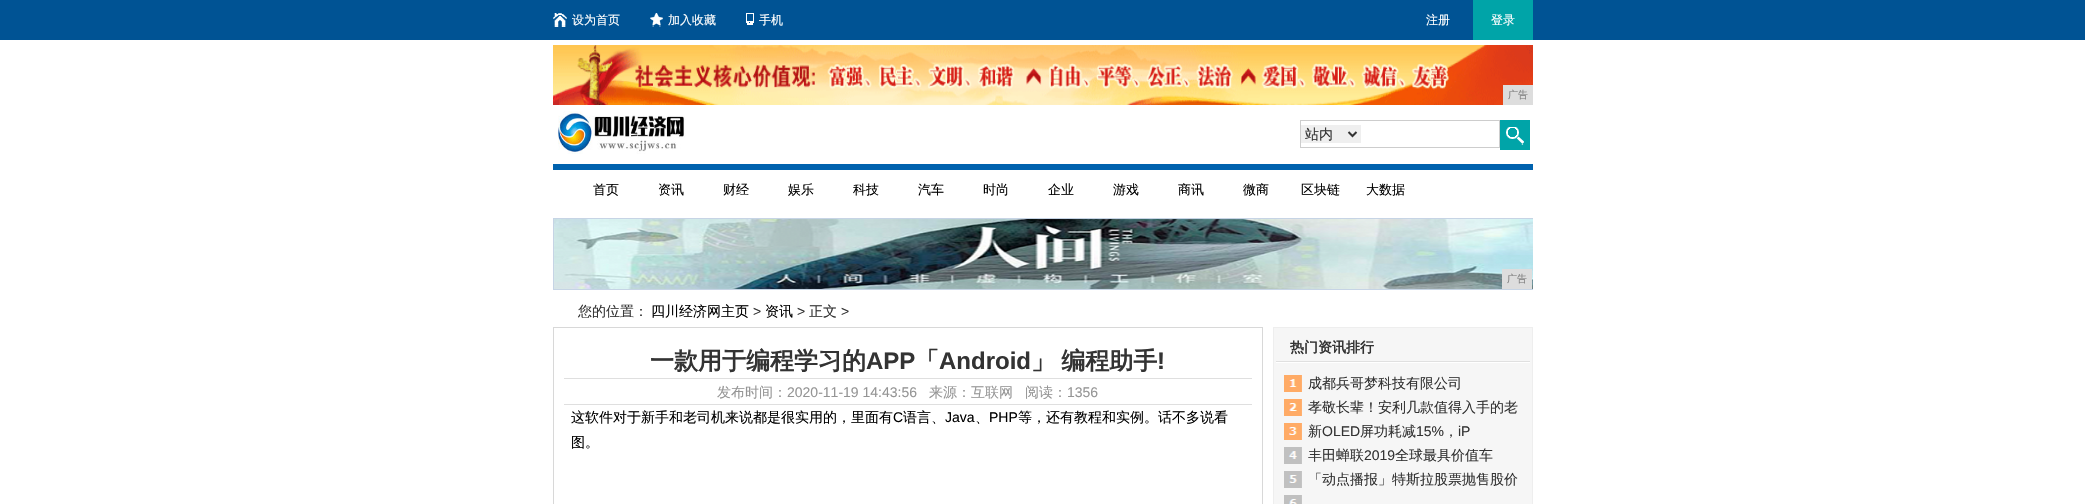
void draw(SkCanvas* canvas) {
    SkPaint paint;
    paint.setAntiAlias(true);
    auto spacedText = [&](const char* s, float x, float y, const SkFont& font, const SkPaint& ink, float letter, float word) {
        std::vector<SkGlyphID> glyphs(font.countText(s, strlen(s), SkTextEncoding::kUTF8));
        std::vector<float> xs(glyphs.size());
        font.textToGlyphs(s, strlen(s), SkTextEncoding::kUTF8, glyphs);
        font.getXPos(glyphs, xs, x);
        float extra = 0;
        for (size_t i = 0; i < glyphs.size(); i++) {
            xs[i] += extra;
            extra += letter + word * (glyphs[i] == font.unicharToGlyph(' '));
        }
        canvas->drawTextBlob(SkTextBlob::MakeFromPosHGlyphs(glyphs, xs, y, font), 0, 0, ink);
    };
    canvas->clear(0xFFFFFFFF);
    paint.setColor(0xFF005394);
    canvas->drawRect(SkRect::MakeXYWH(0, 0, 2085, 40), paint);
    canvas->drawImageRect(SkImages::DeferredFromEncodedData(SkData::MakeFromFileName("img1.png")), SkRect::MakeXYWH(553, 13, 14, 14), SkSamplingOptions());
    SkFont font1(fontMgr->matchFamilyStyle("WenQuanYi Zen Hei", SkFontStyle(500, SkFontStyle::kNormal_Width, SkFontStyle::kUpright_Slant)), 12);
    font1.setSubpixel(true);
    paint.setColor(0xFFFFFFFF);
    canvas->drawString("设为首页", 572, 24, font1, paint);
    canvas->drawImageRect(SkImages::DeferredFromEncodedData(SkData::MakeFromFileName("img2.png")), SkRect::MakeXYWH(650, 13, 13, 14), SkSamplingOptions());
    canvas->drawString("加入收藏", 668, 24, font1, paint);
    canvas->drawImageRect(SkImages::DeferredFromEncodedData(SkData::MakeFromFileName("img3.png")), SkRect::MakeXYWH(746, 13, 8, 12), SkSamplingOptions());
    canvas->drawString("手机", 759, 24, font1, paint);
    canvas->drawString("注册", 1426, 24, font1, paint);
    paint.setColor(0xFF00A4A8);
    canvas->drawRect(SkRect::MakeXYWH(1473, 0, 60, 40), paint);
    paint.setColor(0xFFFFFFFF);
    canvas->drawString("登录", 1491, 24, font1, paint);
    canvas->drawImageRect(SkImages::DeferredFromEncodedData(SkData::MakeFromFileName("img4.png")), SkRect::MakeXYWH(553, 45, 980, 60), SkSamplingOptions());
    paint.setColor(0xFFDDDDDD);
    canvas->drawRect(SkRect::MakeXYWH(1503, 85, 30, 20), paint);
    SkFont font2(fontMgr->matchFamilyStyle("WenQuanYi Zen Hei", SkFontStyle(500, SkFontStyle::kNormal_Width, SkFontStyle::kUpright_Slant)), 10);
    font2.setSubpixel(true);
    paint.setColor(0xFF808080);
    canvas->drawString("广告", 1508, 98, font2, paint);
    paint.setColor(0xFF0062AE);
    canvas->drawRect(SkRect::MakeXYWH(553, 164, 980, 6), paint);
    canvas->drawImageRect(SkImages::DeferredFromEncodedData(SkData::MakeFromFileName("img5.png")), SkRect::MakeXYWH(558, 111, 128, 43), SkSamplingOptions());
    paint.setStyle(SkPaint::kStroke_Style);
    paint.setStrokeWidth(1);
    paint.setColor(0xFFCDCDCD);
    canvas->drawRect(SkRect::MakeXYWH(1300.5f, 120.5f, 199, 27), paint);
    paint.setStyle(SkPaint::kFill_Style);
    paint.setColor(0xFFEFEFEF);
    canvas->drawRect(SkRect::MakeXYWH(1301, 125, 60, 18), paint);
    paint.setStyle(SkPaint::kStroke_Style);
    paint.setStrokeWidth(2);
    paint.setColor(0xFF333333);
    canvas->drawPath(SkPathBuilder().moveTo(1348.5f, 132).lineTo(1352.5f, 136).lineTo(1356.5f, 132).detach(), paint);
    canvas->save();
    canvas->clipRect(SkRect::MakeXYWH(1305, 125, 40, 18));
    SkFont font3(fontMgr->matchFamilyStyle("WenQuanYi Zen Hei", SkFontStyle(500, SkFontStyle::kNormal_Width, SkFontStyle::kUpright_Slant)), 14);
    font3.setSubpixel(true);
    paint.setStyle(SkPaint::kFill_Style);
    canvas->drawString("站内", 1305, 139, font3, paint);
    canvas->restore();
    paint.setColor(0xFF00A4A8);
    canvas->drawRect(SkRect::MakeXYWH(1500, 120, 30, 30), paint);
    canvas->drawImageRect(SkImages::DeferredFromEncodedData(SkData::MakeFromFileName("img6.png")), SkRect::MakeXYWH(1506, 127, 18, 18), SkSamplingOptions());
    SkFont font4(fontMgr->matchFamilyStyle("WenQuanYi Zen Hei", SkFontStyle(500, SkFontStyle::kNormal_Width, SkFontStyle::kUpright_Slant)), 13);
    font4.setSubpixel(true);
    paint.setColor(0xFF000000);
    canvas->drawString("首页", 593, 194, font4, paint);
    canvas->drawString("资讯", 658, 194, font4, paint);
    canvas->drawString("财经", 723, 194, font4, paint);
    canvas->drawString("娱乐", 788, 194, font4, paint);
    canvas->drawString("科技", 853, 194, font4, paint);
    canvas->drawString("汽车", 918, 194, font4, paint);
    canvas->drawString("时尚", 983, 194, font4, paint);
    canvas->drawString("企业", 1048, 194, font4, paint);
    canvas->drawString("游戏", 1113, 194, font4, paint);
    canvas->drawString("商讯", 1178, 194, font4, paint);
    canvas->drawString("微商", 1243, 194, font4, paint);
    canvas->drawString("区块链", 1301, 194, font4, paint);
    canvas->drawString("大数据", 1366, 194, font4, paint);
    paint.setStyle(SkPaint::kStroke_Style);
    paint.setStrokeWidth(1);
    paint.setColor(0xFFC6D4E5);
    canvas->drawRect(SkRect::MakeXYWH(553.5f, 218.5f, 979, 71), paint);
    canvas->drawImageRect(SkImages::DeferredFromEncodedData(SkData::MakeFromFileName("img7.png")), SkRect::MakeXYWH(554, 219, 979, 70), SkSamplingOptions());
    paint.setStyle(SkPaint::kFill_Style);
    paint.setColor(0xFFDDDDDD);
    canvas->drawRect(SkRect::MakeXYWH(1502, 269, 30, 20), paint);
    paint.setColor(0xFF808080);
    canvas->drawString("广告", 1507, 282, font2, paint);
    paint.setColor(0xFF333333);
    canvas->drawString("您的位置：", 578, 316, font3, paint);
    paint.setColor(0xFF000000);
    canvas->drawString("四川经济网主页", 651, 316, font3, paint);
    SkFont font5(fontMgr->matchFamilyStyle("Liberation Sans", SkFontStyle::Normal()), 14);
    font5.setSubpixel(true);
    paint.setColor(0xFF333333);
    canvas->drawString(">", 753, 316, font5, paint);
    paint.setColor(0xFF000000);
    canvas->drawString("资讯", 765, 316, font3, paint);
    paint.setColor(0xFF333333);
    canvas->drawString(">", 797, 316, font5, paint);
    canvas->drawString("正文", 809, 316, font3, paint);
    canvas->drawString(">", 841, 316, font5, paint);
    paint.setStyle(SkPaint::kStroke_Style);
    paint.setColor(0xFFD8D8D8);
    canvas->drawRect(SkRect::MakeXYWH(553.5f, 327.5f, 709, 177), paint);
    SkFont font6(fontMgr->matchFamilyStyle("WenQuanYi Zen Hei", SkFontStyle::Bold()), 24);
    font6.setSubpixel(true);
    paint.setStyle(SkPaint::kFill_Style);
    paint.setColor(0xFF333333);
    canvas->drawString("一款用于编程学习的", 650, 369, font6, paint);
    SkFont font7(fontMgr->matchFamilyStyle("Liberation Sans", SkFontStyle::Bold()), 24);
    font7.setSubpixel(true);
    canvas->drawString("APP", 866, 369, font7, paint);
    canvas->drawString("「", 915, 369, font6, paint);
    canvas->drawString("Android", 939, 369, font7, paint);
    spacedText("」 编程助手", 1031, 369, font6, paint, 0, -1);
    canvas->drawString("!", 1157, 369, font7, paint);
    paint.setColor(0xFFDFDFDF);
    canvas->drawRect(SkRect::MakeXYWH(564, 378, 688, 1), paint);
    canvas->drawRect(SkRect::MakeXYWH(564, 404, 688, 1), paint);
    paint.setColor(0xFF959595);
    canvas->drawString("发布时间：", 717, 397, font3, paint);
    canvas->drawString("2020-11-19 14:43:56", 787, 397, font5, paint);
    canvas->drawString("来源：互联网", 929, 397, font3, paint);
    canvas->drawString("阅读：", 1025, 397, font3, paint);
    canvas->drawString("1356", 1067, 397, font5, paint);
    paint.setColor(0xFF000000);
    canvas->drawString("这软件对于新手和老司机来说都是很实用的，里面有", 571, 422, font3, paint);
    canvas->drawString("C", 893, 422, font5, paint);
    canvas->drawString("语言、", 903, 422, font3, paint);
    canvas->drawString("Java", 945, 422, font5, paint);
    canvas->drawString("、", 975, 422, font3, paint);
    canvas->drawString("PHP", 989, 422, font5, paint);
    canvas->drawString("等，还有教程和实例。话不多说看", 1018, 422, font3, paint);
    canvas->drawString("图。", 571, 447, font3, paint);
    paint.setColor(0xFFF6F6F6);
    canvas->drawRect(SkRect::MakeXYWH(1273.5f, 327.5f, 259, 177), paint);
    paint.setStyle(SkPaint::kStroke_Style);
    paint.setColor(0xFFEEEEEE);
    canvas->drawRect(SkRect::MakeXYWH(1273.5f, 327.5f, 259, 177), paint);
    canvas->drawImageRect(SkImages::DeferredFromEncodedData(SkData::MakeFromFileName("img8.png")), SkRect::MakeXYWH(1276, 361, 254, 2), SkSamplingOptions());
    SkFont font8(fontMgr->matchFamilyStyle("WenQuanYi Zen Hei", SkFontStyle::Bold()), 14);
    font8.setSubpixel(true);
    paint.setStyle(SkPaint::kFill_Style);
    paint.setColor(0xFF333333);
    canvas->drawString("热门资讯排行", 1290, 352, font8, paint);
    canvas->drawImageRect(SkImages::DeferredFromEncodedData(SkData::MakeFromFileName("img9.png")), SkRect::MakeXYWH(1284, 375, 18, 129), SkSamplingOptions());
    canvas->drawString("成都兵哥梦科技有限公司", 1308, 388, font3, paint);
    canvas->drawString("孝敬长辈！安利几款值得入手的老", 1308, 412, font3, paint);
    canvas->drawString("新", 1308, 436, font3, paint);
    canvas->drawString("OLED", 1322, 436, font5, paint);
    canvas->drawString("屏功耗减", 1360, 436, font3, paint);
    canvas->drawString("15%", 1416, 436, font5, paint);
    canvas->drawString("，", 1444, 436, font3, paint);
    canvas->drawString("iP", 1458, 436, font5, paint);
    canvas->drawString("丰田蝉联", 1308, 460, font3, paint);
    canvas->drawString("2019", 1364, 460, font5, paint);
    canvas->drawString("全球最具价值车", 1395, 460, font3, paint);
    canvas->drawString("「动点播报」特斯拉股票抛售股价", 1308, 484, font3, paint);
}
